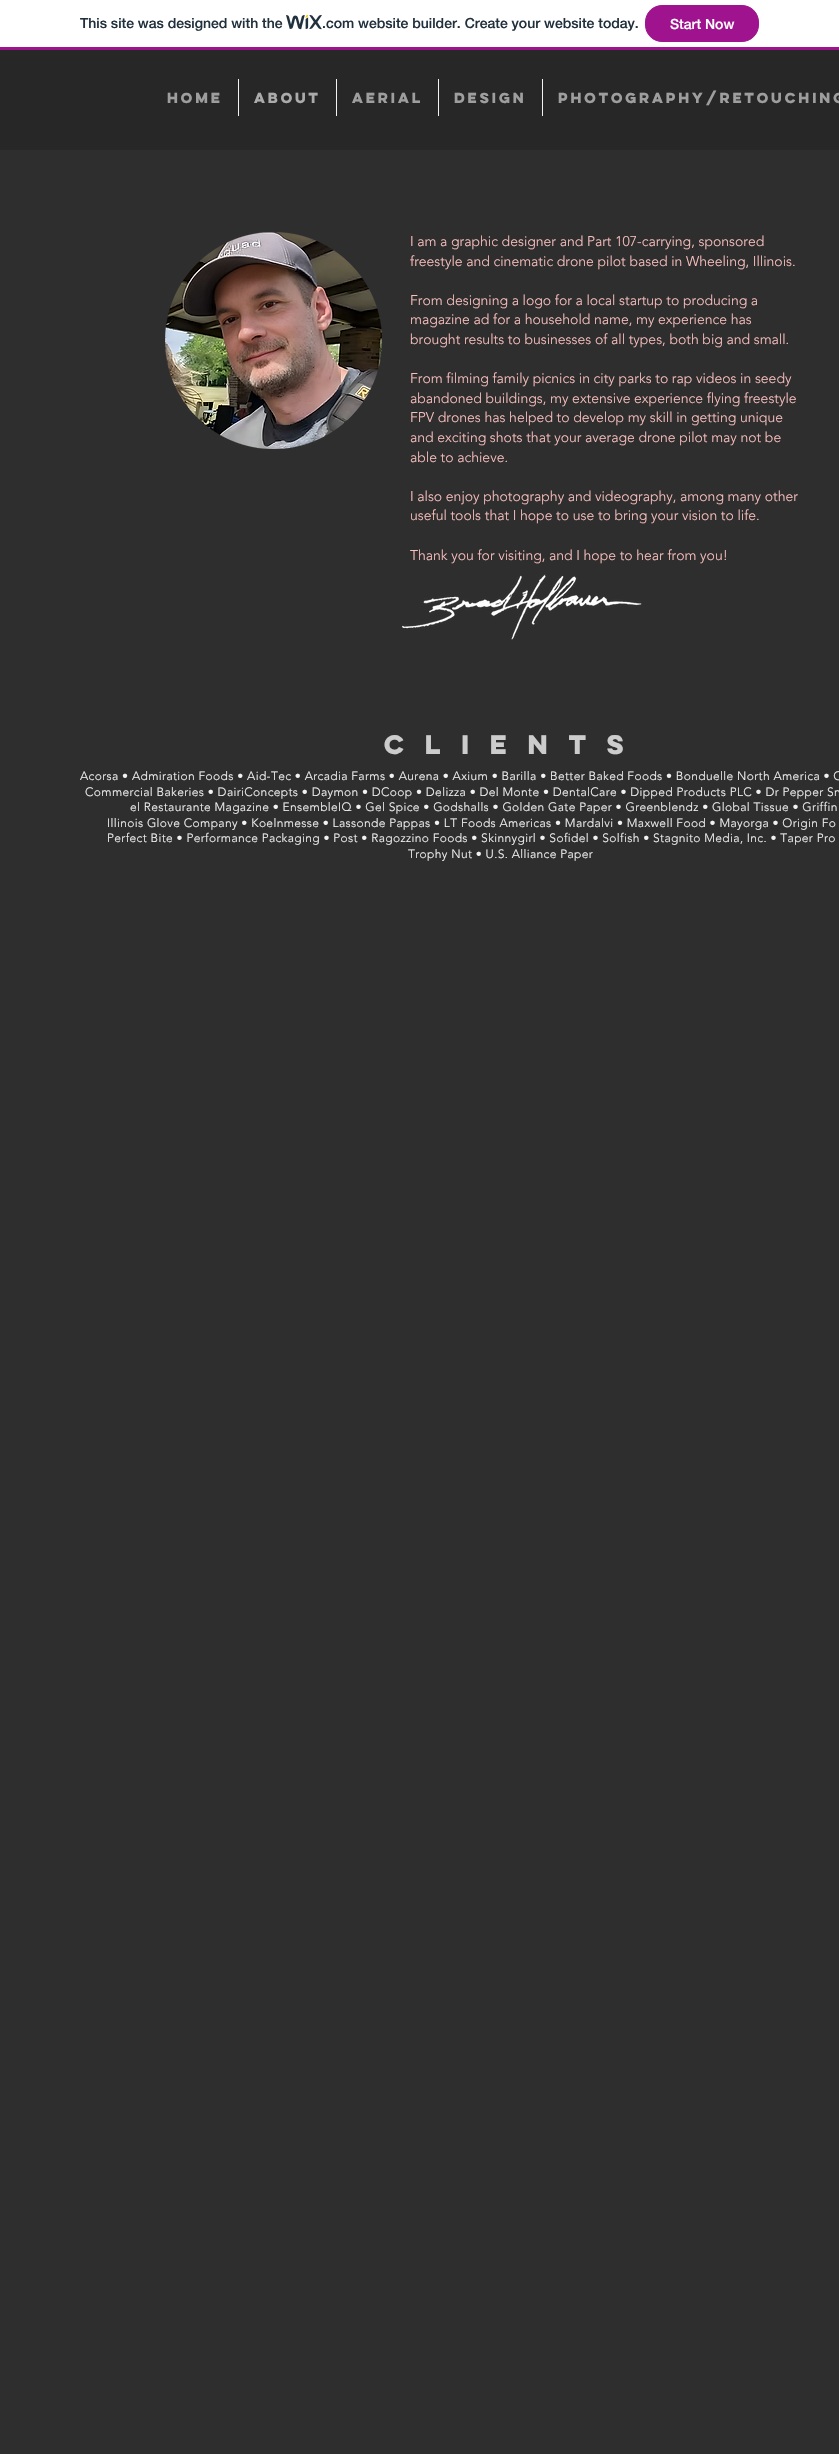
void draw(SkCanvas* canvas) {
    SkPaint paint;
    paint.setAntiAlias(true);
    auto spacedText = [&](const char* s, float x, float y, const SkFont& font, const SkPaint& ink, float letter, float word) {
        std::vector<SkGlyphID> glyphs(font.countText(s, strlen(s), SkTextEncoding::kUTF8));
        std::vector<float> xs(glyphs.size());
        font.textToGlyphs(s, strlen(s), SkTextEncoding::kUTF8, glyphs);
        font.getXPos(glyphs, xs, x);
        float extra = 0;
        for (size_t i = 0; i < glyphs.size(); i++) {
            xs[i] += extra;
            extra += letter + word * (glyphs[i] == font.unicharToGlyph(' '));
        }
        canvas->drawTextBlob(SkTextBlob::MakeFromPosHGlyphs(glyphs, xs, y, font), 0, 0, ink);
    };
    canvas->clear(0xFFFFFFFF);
    paint.setColor(0xFFA0138E);
    canvas->drawRect(SkRect::MakeXYWH(0, 47, 839, 3), paint);
    SkFont font1(fontMgr->matchFamilyStyle("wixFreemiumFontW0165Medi", SkFontStyle(500, SkFontStyle::kNormal_Width, SkFontStyle::kUpright_Slant)), 14);
    font1.setSubpixel(true);
    paint.setColor(0xFF20303C);
    canvas->drawString("This site was designed with the", 80, 28, font1, paint);
    canvas->drawImageRect(SkImages::DeferredFromEncodedData(SkData::MakeFromFileName("img1.png")), SkRect::MakeXYWH(286, 15, 36, 15), SkSamplingOptions());
    canvas->drawString(".com website builder. Create your website today.", 322, 28, font1, paint);
    paint.setColor(0xFFA0138E);
    canvas->drawRoundRect(SkRect::MakeXYWH(645.5f, 5.5f, 113, 36), 16.5f, 16.5f, paint);
    paint.setStyle(SkPaint::kStroke_Style);
    paint.setStrokeWidth(1);
    canvas->drawRoundRect(SkRect::MakeXYWH(645.5f, 5.5f, 113, 36), 16.5f, 16.5f, paint);
    paint.setStyle(SkPaint::kFill_Style);
    paint.setColor(0xFFFFFFFF);
    canvas->drawString("Start Now", 670, 29, font1, paint);
    paint.setColor(0xFF282727);
    canvas->drawRect(SkRect::MakeXYWH(0, 50, 839, 100), paint);
    SkFont font2(fontMgr->matchFamilyStyle("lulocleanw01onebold", SkFontStyle::Bold()), 13);
    font2.setSubpixel(true);
    paint.setColor(0xFF9E9E9E);
    canvas->drawString("Home", 167, 103, font2, paint);
    paint.setColor(0xFFF2F2F2);
    canvas->drawRect(SkRect::MakeXYWH(238, 79, 1, 37), paint);
    paint.setColor(0xFFACABAB);
    canvas->drawString("About", 254, 103, font2, paint);
    paint.setColor(0xFFF2F2F2);
    canvas->drawRect(SkRect::MakeXYWH(336, 79, 1, 37), paint);
    paint.setColor(0xFF9E9E9E);
    canvas->drawString("Aerial", 352, 103, font2, paint);
    paint.setColor(0xFFF2F2F2);
    canvas->drawRect(SkRect::MakeXYWH(438, 79, 1, 37), paint);
    paint.setColor(0xFF9E9E9E);
    canvas->drawString("Design", 454, 103, font2, paint);
    paint.setColor(0xFFF2F2F2);
    canvas->drawRect(SkRect::MakeXYWH(542, 79, 1, 37), paint);
    paint.setColor(0xFF9E9E9E);
    canvas->drawString("Photography/Retouching", 558, 103, font2, paint);
    paint.setColor(0xFF2F2E2E);
    canvas->drawRect(SkRect::MakeXYWH(0, 150, 839, 2304), paint);
    canvas->drawImageRect(SkImages::DeferredFromEncodedData(SkData::MakeFromFileName("img2.png")), SkRect::MakeXYWH(165, 232, 217, 217), SkSamplingOptions());
    SkFont font3(fontMgr->matchFamilyStyle("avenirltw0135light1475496", SkFontStyle(300, SkFontStyle::kNormal_Width, SkFontStyle::kUpright_Slant)), 14);
    font3.setSubpixel(true);
    paint.setColor(0xFFF7BFBD);
    canvas->drawString("I am a graphic designer and Part 107-carrying, sponsored", 410, 246, font3, paint);
    canvas->drawString("freestyle and cinematic drone pilot based in Wheeling, Illinois.", 410, 266, font3, paint);
    canvas->drawString("From designing a logo for a local startup to producing a", 410, 305, font3, paint);
    canvas->drawString("magazine ad for a household name, my experience has", 410, 324, font3, paint);
    canvas->drawString("brought results to businesses of all types, both big and small.", 410, 344, font3, paint);
    canvas->drawString("From filming family picnics in city parks to rap videos in seedy", 410, 383, font3, paint);
    canvas->drawString("abandoned buildings, my extensive experience flying freestyle", 410, 403, font3, paint);
    canvas->drawString("FPV drones has helped to develop my skill in getting unique", 410, 422, font3, paint);
    canvas->drawString("and exciting shots that your average drone pilot may not be", 410, 442, font3, paint);
    canvas->drawString("able to achieve.", 410, 462, font3, paint);
    canvas->drawString("I also enjoy photography and videography, among many other", 410, 501, font3, paint);
    canvas->drawString("useful tools that I hope to use to bring your vision to life.", 410, 520, font3, paint);
    canvas->drawString("Thank you for visiting, and I hope to hear from you!", 410, 560, font3, paint);
    canvas->drawImageRect(SkImages::DeferredFromEncodedData(SkData::MakeFromFileName("img3.png")), SkRect::MakeXYWH(401, 574, 241, 66), SkSamplingOptions());
    SkFont font4(fontMgr->matchFamilyStyle("lulocleanw01onebold", SkFontStyle::Bold()), 24);
    font4.setSubpixel(true);
    paint.setColor(0xFFCCCCCC);
    spacedText("CLIENTS", 384, 754, font4, paint, 15.5f, 0);
    SkFont font5(fontMgr->matchFamilyStyle("avenirltw0135light1475496", SkFontStyle(300, SkFontStyle::kNormal_Width, SkFontStyle::kUpright_Slant)), 12);
    font5.setSubpixel(true);
    paint.setColor(0xFFF2F2F2);
    spacedText("Acorsa • Admiration Foods • Aid-Tec • Arcadia Farms • Aurena • Axium • Barilla • Better Baked Foods • Bonduelle North America • C", 80, 780, font5, paint, 0.36f, 0);
    spacedText("Commercial Bakeries • DairiConcepts • Daymon • DCoop • Delizza • Del Monte • DentalCare • Dipped Products PLC • Dr Pepper Sn", 85, 796, font5, paint, 0.36f, 0);
    spacedText("el Restaurante Magazine • EnsembleIQ • Gel Spice • Godshalls • Golden Gate Paper • Greenblendz • Global Tissue • Griffin", 130, 811, font5, paint, 0.36f, 0);
    spacedText("Illinois Glove Company • Koelnmesse • Lassonde Pappas • LT Foods Americas • Mardalvi • Maxwell Food • Mayorga • Origin Fo", 107, 827, font5, paint, 0.36f, 0);
    spacedText("Perfect Bite • Performance Packaging • Post • Ragozzino Foods • Skinnygirl • Sofidel • Solfish • Stagnito Media, Inc. • Taper Pro", 107, 842, font5, paint, 0.36f, 0);
    spacedText("Trophy Nut • U.S. Alliance Paper", 408, 858, font5, paint, 0.36f, 0);
}
